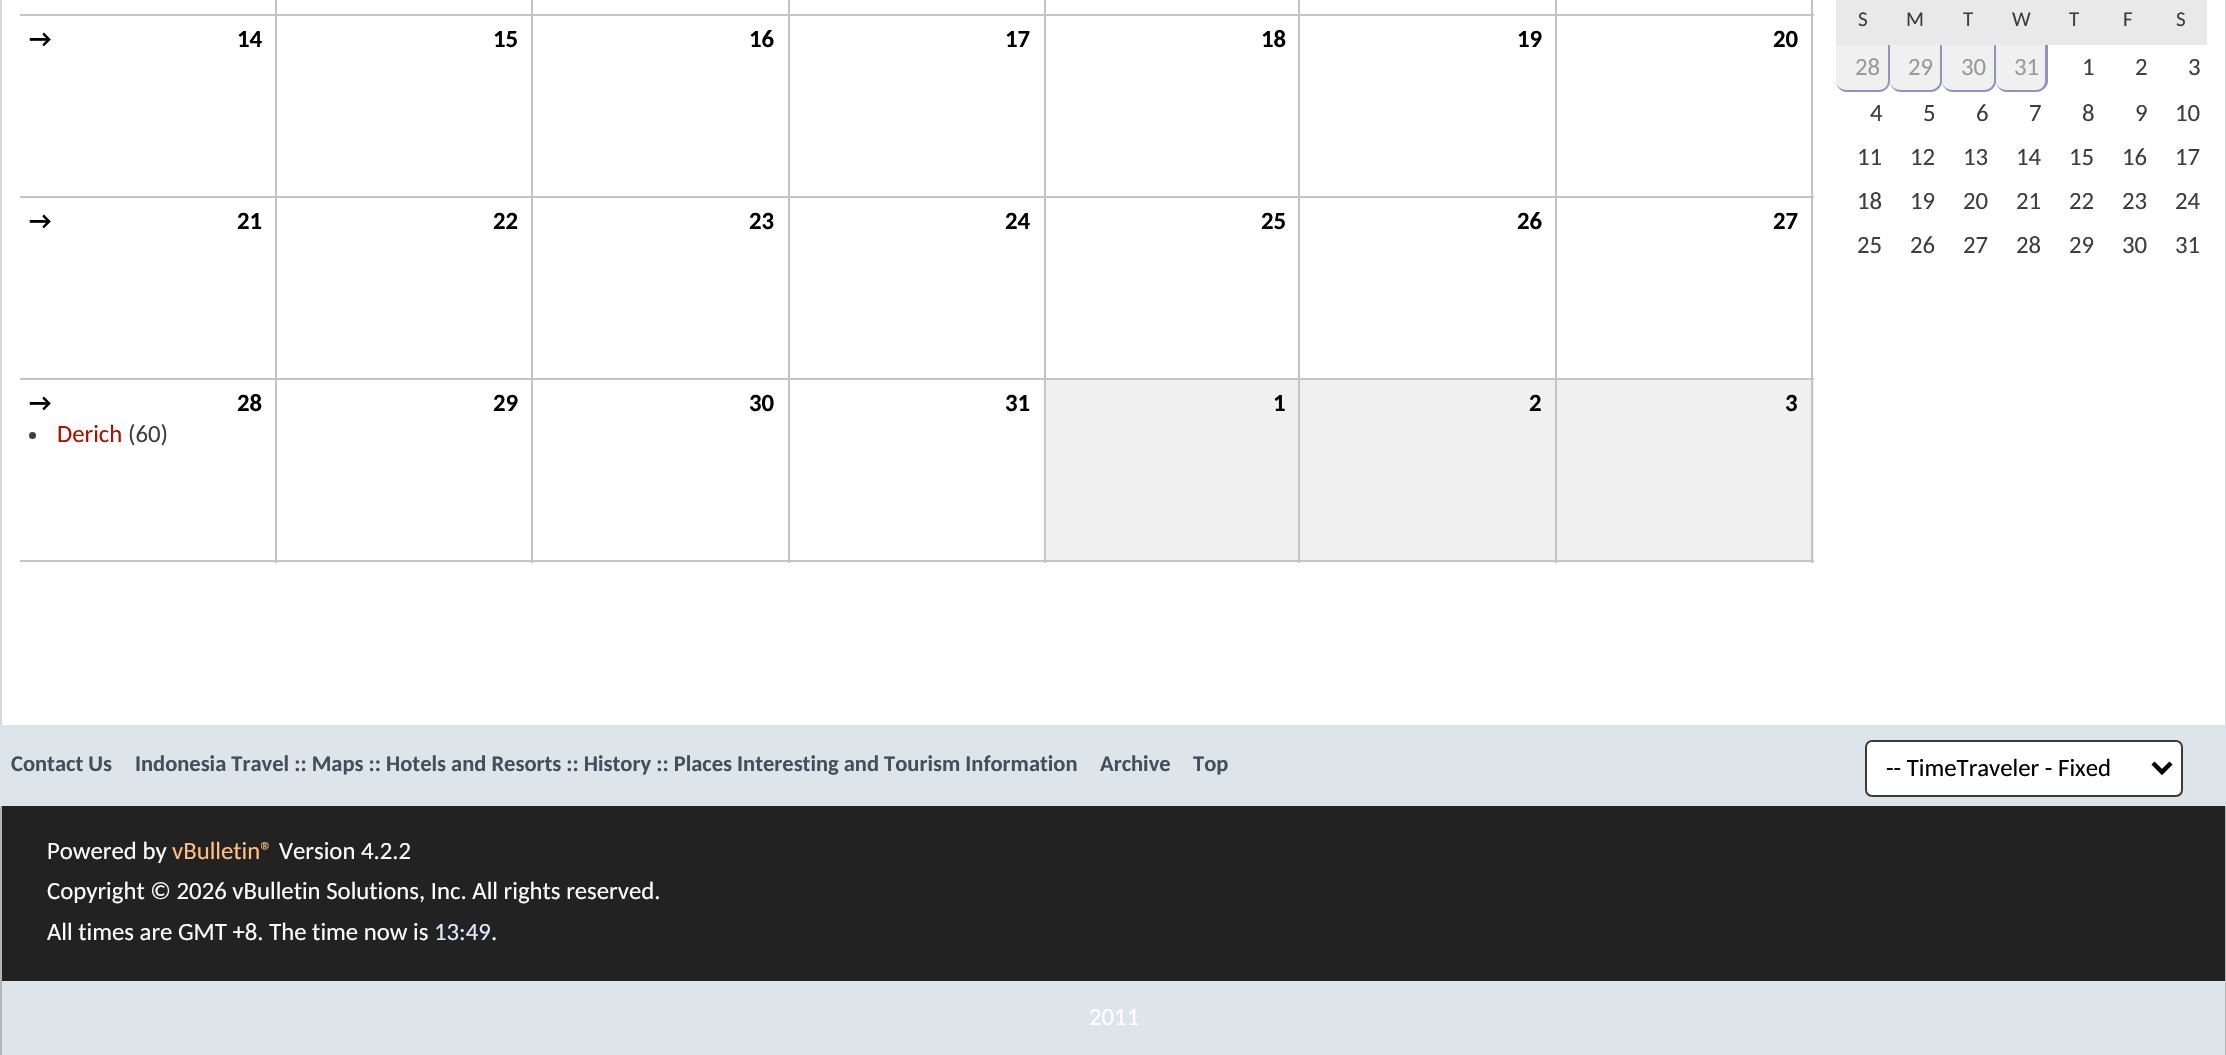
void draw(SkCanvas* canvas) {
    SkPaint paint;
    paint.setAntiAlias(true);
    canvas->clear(0xFFDEE5EA);
    paint.setColor(0xFFFFFFFF);
    canvas->drawRect(SkRect::MakeXYWH(2, 0, 2223, 725), paint);
    paint.setColor(0xFFD6D6D6);
    canvas->drawRect(SkRect::MakeXYWH(2225, 0, 1, 725), paint);
    canvas->drawRect(SkRect::MakeXYWH(0, 0, 2, 725), paint);
    paint.setColor(0xFFF0F0F0);
    canvas->drawRect(SkRect::MakeXYWH(1557, 380, 257, 180), paint);
    paint.setColor(0xFFC4C4C4);
    canvas->drawRect(SkRect::MakeXYWH(1811, 0, 2, 563), paint);
    canvas->drawRect(SkRect::MakeXYWH(1555, 560, 259, 2), paint);
    canvas->drawRect(SkRect::MakeXYWH(1555, 378, 2, 185), paint);
    canvas->drawRect(SkRect::MakeXYWH(1555, 378, 259, 2), paint);
    canvas->drawRect(SkRect::MakeXYWH(1555, 196, 2, 184), paint);
    canvas->drawRect(SkRect::MakeXYWH(1555, 196, 259, 2), paint);
    canvas->drawRect(SkRect::MakeXYWH(1555, 14, 2, 184), paint);
    canvas->drawRect(SkRect::MakeXYWH(1555, 14, 259, 2), paint);
    canvas->drawRect(SkRect::MakeXYWH(1555, 0, 2, 16), paint);
    paint.setColor(0xFFF0F0F0);
    canvas->drawRect(SkRect::MakeXYWH(1046, 380, 509, 180), paint);
    paint.setColor(0xFFC4C4C4);
    canvas->drawRect(SkRect::MakeXYWH(1298, 560, 259, 2), paint);
    canvas->drawRect(SkRect::MakeXYWH(1298, 378, 2, 185), paint);
    canvas->drawRect(SkRect::MakeXYWH(1298, 378, 259, 2), paint);
    canvas->drawRect(SkRect::MakeXYWH(1298, 196, 2, 184), paint);
    canvas->drawRect(SkRect::MakeXYWH(1298, 196, 259, 2), paint);
    canvas->drawRect(SkRect::MakeXYWH(1298, 14, 2, 184), paint);
    canvas->drawRect(SkRect::MakeXYWH(1298, 14, 259, 2), paint);
    canvas->drawRect(SkRect::MakeXYWH(1298, 0, 2, 16), paint);
    canvas->drawRect(SkRect::MakeXYWH(1044, 560, 257, 2), paint);
    canvas->drawRect(SkRect::MakeXYWH(1044, 378, 2, 185), paint);
    canvas->drawRect(SkRect::MakeXYWH(1044, 378, 257, 2), paint);
    canvas->drawRect(SkRect::MakeXYWH(1044, 196, 2, 184), paint);
    canvas->drawRect(SkRect::MakeXYWH(1044, 196, 257, 2), paint);
    canvas->drawRect(SkRect::MakeXYWH(1044, 14, 2, 184), paint);
    canvas->drawRect(SkRect::MakeXYWH(1044, 14, 257, 2), paint);
    canvas->drawRect(SkRect::MakeXYWH(1044, 0, 2, 16), paint);
    canvas->drawRect(SkRect::MakeXYWH(788, 560, 258, 2), paint);
    canvas->drawRect(SkRect::MakeXYWH(788, 378, 2, 185), paint);
    canvas->drawRect(SkRect::MakeXYWH(788, 378, 258, 2), paint);
    canvas->drawRect(SkRect::MakeXYWH(788, 196, 2, 184), paint);
    canvas->drawRect(SkRect::MakeXYWH(788, 196, 258, 2), paint);
    canvas->drawRect(SkRect::MakeXYWH(788, 14, 2, 184), paint);
    canvas->drawRect(SkRect::MakeXYWH(788, 14, 258, 2), paint);
    canvas->drawRect(SkRect::MakeXYWH(788, 0, 2, 16), paint);
    canvas->drawRect(SkRect::MakeXYWH(531, 560, 259, 2), paint);
    canvas->drawRect(SkRect::MakeXYWH(531, 378, 2, 185), paint);
    canvas->drawRect(SkRect::MakeXYWH(531, 378, 259, 2), paint);
    canvas->drawRect(SkRect::MakeXYWH(531, 196, 2, 184), paint);
    canvas->drawRect(SkRect::MakeXYWH(531, 196, 259, 2), paint);
    canvas->drawRect(SkRect::MakeXYWH(531, 14, 2, 184), paint);
    canvas->drawRect(SkRect::MakeXYWH(531, 14, 259, 2), paint);
    canvas->drawRect(SkRect::MakeXYWH(531, 0, 2, 16), paint);
    canvas->drawRect(SkRect::MakeXYWH(275, 560, 258, 2), paint);
    canvas->drawRect(SkRect::MakeXYWH(275, 378, 2, 185), paint);
    canvas->drawRect(SkRect::MakeXYWH(275, 378, 258, 2), paint);
    canvas->drawRect(SkRect::MakeXYWH(275, 196, 2, 184), paint);
    canvas->drawRect(SkRect::MakeXYWH(275, 196, 258, 2), paint);
    canvas->drawRect(SkRect::MakeXYWH(275, 14, 2, 184), paint);
    canvas->drawRect(SkRect::MakeXYWH(275, 14, 258, 2), paint);
    canvas->drawRect(SkRect::MakeXYWH(275, 0, 2, 16), paint);
    canvas->drawRect(SkRect::MakeXYWH(20, 14, 257, 2), paint);
    canvas->drawRect(SkRect::MakeXYWH(20, 196, 257, 2), paint);
    SkFont font1(fontMgr->matchFamilyStyle("Carlito", SkFontStyle::Bold()), 24.75f);
    font1.setSubpixel(true);
    paint.setColor(0xFF000000);
    canvas->drawString("→", 29, 47, font1, paint);
    canvas->drawString("14", 237, 47, font1, paint);
    canvas->drawString("15", 493, 47, font1, paint);
    canvas->drawString("16", 749, 47, font1, paint);
    canvas->drawString("17", 1005, 47, font1, paint);
    canvas->drawString("18", 1261, 47, font1, paint);
    canvas->drawString("19", 1517, 47, font1, paint);
    canvas->drawString("20", 1773, 47, font1, paint);
    paint.setColor(0xFFC4C4C4);
    canvas->drawRect(SkRect::MakeXYWH(20, 378, 257, 2), paint);
    paint.setColor(0xFF000000);
    canvas->drawString("→", 29, 229, font1, paint);
    canvas->drawString("21", 237, 229, font1, paint);
    canvas->drawString("22", 493, 229, font1, paint);
    canvas->drawString("23", 749, 229, font1, paint);
    canvas->drawString("24", 1005, 229, font1, paint);
    canvas->drawString("25", 1261, 229, font1, paint);
    canvas->drawString("26", 1517, 229, font1, paint);
    canvas->drawString("27", 1773, 229, font1, paint);
    paint.setColor(0xFFC4C4C4);
    canvas->drawRect(SkRect::MakeXYWH(20, 560, 257, 2), paint);
    paint.setColor(0xFF000000);
    canvas->drawString("→", 29, 411, font1, paint);
    canvas->drawString("28", 237, 411, font1, paint);
    paint.setColor(0xFF3E3E3E);
    canvas->drawCircle(32.5f, 435.5f, 3.5f, paint);
    SkFont font2(fontMgr->matchFamilyStyle("Carlito", SkFontStyle::Normal()), 24.75f);
    font2.setSubpixel(true);
    paint.setColor(0xFFAB1000);
    canvas->drawString("Derich", 57, 442, font2, paint);
    paint.setColor(0xFF3E3E3E);
    canvas->drawString("(60)", 128, 442, font2, paint);
    paint.setColor(0xFF000000);
    canvas->drawString("29", 493, 411, font1, paint);
    canvas->drawString("30", 749, 411, font1, paint);
    canvas->drawString("31", 1005, 411, font1, paint);
    canvas->drawString("1", 1273, 411, font1, paint);
    canvas->drawString("2", 1529, 411, font1, paint);
    canvas->drawString("3", 1785, 411, font1, paint);
    paint.setColor(0xFFE9E9E9);
    canvas->drawRect(SkRect::MakeXYWH(1836, 0, 371, 45), paint);
    SkFont font3(fontMgr->matchFamilyStyle("Carlito", SkFontStyle::Normal()), 21);
    font3.setSubpixel(true);
    paint.setColor(0xFF3E3E3E);
    canvas->drawString("S", 1858, 26, font3, paint);
    canvas->drawString("M", 1906, 26, font3, paint);
    canvas->drawString("T", 1963, 26, font3, paint);
    canvas->drawString("W", 2012, 26, font3, paint);
    canvas->drawString("T", 2069, 26, font3, paint);
    canvas->drawString("F", 2123, 26, font3, paint);
    canvas->drawString("S", 2176, 26, font3, paint);
    paint.setColor(0xFFF0F0F0);
    canvas->drawPath(SkPathBuilder().moveTo(1836, 45).lineTo(1890, 45).lineTo(1890, 81).cubicTo(1890, 87, 1885, 92, 1879, 92).lineTo(1847, 92).cubicTo(1841, 92, 1836, 87, 1836, 81).close().detach(), paint);
    paint.setColor(0xFF8F95BF);
    canvas->drawPath(SkPathBuilder(SkPathFillType::kEvenOdd).moveTo(1836, 45).lineTo(1890, 45).lineTo(1890, 81).cubicTo(1890, 87, 1885, 92, 1879, 92).lineTo(1847, 92).cubicTo(1841, 92, 1836, 87, 1836, 81).close().moveTo(1836, 45).lineTo(1888, 45).lineTo(1888, 81).cubicTo(1888, 86, 1884, 90, 1879, 90).lineTo(1847, 90).cubicTo(1841, 90, 1836, 86, 1836, 81).close().detach(), paint);
    paint.setColor(0xFF999999);
    canvas->drawString("28", 1855, 75, font2, paint);
    paint.setColor(0xFFF0F0F0);
    canvas->drawPath(SkPathBuilder().moveTo(1890, 45).lineTo(1942, 45).lineTo(1942, 81).cubicTo(1942, 87, 1937, 92, 1931, 92).lineTo(1901, 92).cubicTo(1895, 92, 1890, 87, 1890, 81).close().detach(), paint);
    paint.setColor(0xFF8F95BF);
    canvas->drawPath(SkPathBuilder(SkPathFillType::kEvenOdd).moveTo(1890, 45).lineTo(1942, 45).lineTo(1942, 81).cubicTo(1942, 87, 1937, 92, 1930, 92).lineTo(1901, 92).cubicTo(1895, 92, 1890, 87, 1890, 81).close().moveTo(1890, 45).lineTo(1940, 45).lineTo(1940, 81).cubicTo(1940, 86, 1935, 90, 1930, 90).lineTo(1901, 90).cubicTo(1895, 90, 1890, 86, 1890, 81).close().detach(), paint);
    paint.setColor(0xFF999999);
    canvas->drawString("29", 1908, 75, font2, paint);
    paint.setColor(0xFFF0F0F0);
    canvas->drawPath(SkPathBuilder().moveTo(1942, 45).lineTo(1996, 45).lineTo(1996, 81).cubicTo(1996, 87, 1991, 92, 1985, 92).lineTo(1953, 92).cubicTo(1947, 92, 1942, 87, 1942, 81).close().detach(), paint);
    paint.setColor(0xFF8F95BF);
    canvas->drawPath(SkPathBuilder(SkPathFillType::kEvenOdd).moveTo(1942, 45).lineTo(1996, 45).lineTo(1996, 81).cubicTo(1996, 87, 1991, 92, 1984, 92).lineTo(1953, 92).cubicTo(1947, 92, 1942, 87, 1942, 81).close().moveTo(1942, 45).lineTo(1994, 45).lineTo(1994, 81).cubicTo(1994, 86, 1989, 90, 1984, 90).lineTo(1953, 90).cubicTo(1947, 90, 1942, 86, 1942, 81).close().detach(), paint);
    paint.setColor(0xFF999999);
    canvas->drawString("30", 1961, 75, font2, paint);
    paint.setColor(0xFFF0F0F0);
    canvas->drawPath(SkPathBuilder().moveTo(1996, 45).lineTo(2048, 45).lineTo(2048, 81).cubicTo(2048, 87, 2043, 92, 2037, 92).lineTo(2007, 92).cubicTo(2001, 92, 1996, 87, 1996, 81).close().detach(), paint);
    paint.setColor(0xFF8F95BF);
    canvas->drawPath(SkPathBuilder(SkPathFillType::kEvenOdd).moveTo(1996, 45).lineTo(2048, 45).lineTo(2048, 81).cubicTo(2048, 87, 2042, 92, 2036, 92).lineTo(2007, 92).cubicTo(2001, 92, 1996, 87, 1996, 81).close().moveTo(1996, 45).lineTo(2045, 45).lineTo(2045, 81).cubicTo(2045, 86, 2041, 90, 2036, 90).lineTo(2007, 90).cubicTo(2001, 90, 1996, 86, 1996, 81).close().detach(), paint);
    paint.setColor(0xFF999999);
    canvas->drawString("31", 2014, 75, font2, paint);
    paint.setColor(0xFF3E3E3E);
    canvas->drawString("1", 2082, 75, font2, paint);
    canvas->drawString("2", 2135, 75, font2, paint);
    canvas->drawString("3", 2188, 75, font2, paint);
    canvas->drawString("4", 1870, 121, font2, paint);
    canvas->drawString("5", 1923, 121, font2, paint);
    canvas->drawString("6", 1976, 121, font2, paint);
    canvas->drawString("7", 2029, 121, font2, paint);
    canvas->drawString("8", 2082, 121, font2, paint);
    canvas->drawString("9", 2135, 121, font2, paint);
    canvas->drawString("10", 2175, 121, font2, paint);
    canvas->drawString("11", 1857, 165, font2, paint);
    canvas->drawString("12", 1910, 165, font2, paint);
    canvas->drawString("13", 1963, 165, font2, paint);
    canvas->drawString("14", 2016, 165, font2, paint);
    canvas->drawString("15", 2069, 165, font2, paint);
    canvas->drawString("16", 2122, 165, font2, paint);
    canvas->drawString("17", 2175, 165, font2, paint);
    canvas->drawString("18", 1857, 209, font2, paint);
    canvas->drawString("19", 1910, 209, font2, paint);
    canvas->drawString("20", 1963, 209, font2, paint);
    canvas->drawString("21", 2016, 209, font2, paint);
    canvas->drawString("22", 2069, 209, font2, paint);
    canvas->drawString("23", 2122, 209, font2, paint);
    canvas->drawString("24", 2175, 209, font2, paint);
    canvas->drawString("25", 1857, 253, font2, paint);
    canvas->drawString("26", 1910, 253, font2, paint);
    canvas->drawString("27", 1963, 253, font2, paint);
    canvas->drawString("28", 2016, 253, font2, paint);
    canvas->drawString("29", 2069, 253, font2, paint);
    canvas->drawString("30", 2122, 253, font2, paint);
    canvas->drawString("31", 2175, 253, font2, paint);
    SkFont font4(fontMgr->matchFamilyStyle("Carlito", SkFontStyle::Bold()), 22.5f);
    font4.setSubpixel(true);
    paint.setColor(0xFF41505C);
    canvas->drawString("Contact Us", 11, 771, font4, paint);
    canvas->drawString("Indonesia Travel :: Maps :: Hotels and Resorts :: History :: Places Interesting and Tourism Information", 135, 771, font4, paint);
    canvas->drawString("Archive", 1100, 771, font4, paint);
    canvas->drawString("Top", 1193, 771, font4, paint);
    paint.setColor(0xFFFFFFFF);
    canvas->drawRoundRect(SkRect::MakeXYWH(1866, 741, 316, 55), 6, 6, paint);
    paint.setStyle(SkPaint::kStroke_Style);
    paint.setStrokeWidth(2);
    paint.setColor(0xFF3C3C3C);
    canvas->drawRoundRect(SkRect::MakeXYWH(1866, 741, 316, 55), 6, 6, paint);
    paint.setStrokeWidth(4.5f);
    paint.setColor(0xFF000000);
    canvas->drawPath(SkPathBuilder().moveTo(2153, 763).lineTo(2162, 772).lineTo(2171, 763).detach(), paint);
    paint.setStyle(SkPaint::kFill_Style);
    canvas->drawString("-- TimeTraveler - Fixed", 1886, 776, font2, paint);
    paint.setColor(0xFF222222);
    canvas->drawRect(SkRect::MakeXYWH(2, 806, 2223, 175), paint);
    paint.setColor(0xFFB4B4B4);
    canvas->drawRect(SkRect::MakeXYWH(2225, 806, 1, 249), paint);
    canvas->drawRect(SkRect::MakeXYWH(0, 806, 2, 249), paint);
    paint.setColor(0xFFFFFFFF);
    canvas->drawString("Powered by", 47, 859, font2, paint);
    paint.setColor(0xFFFFBD83);
    canvas->drawString("vBulletin®", 172, 859, font2, paint);
    paint.setColor(0xFFFFFFFF);
    canvas->drawString("Version 4.2.2", 279, 859, font2, paint);
    canvas->drawString("Copyright © 2026 vBulletin Solutions, Inc. All rights reserved.", 47, 899, font2, paint);
    canvas->drawString("All times are GMT +8. The time now is", 47, 940, font2, paint);
    paint.setColor(0xFFDFE9FF);
    canvas->drawString("13:49", 434, 940, font2, paint);
    paint.setColor(0xFFFFFFFF);
    canvas->drawString(".", 491, 940, font2, paint);
    canvas->drawString("2011", 1089, 1025, font2, paint);
}
